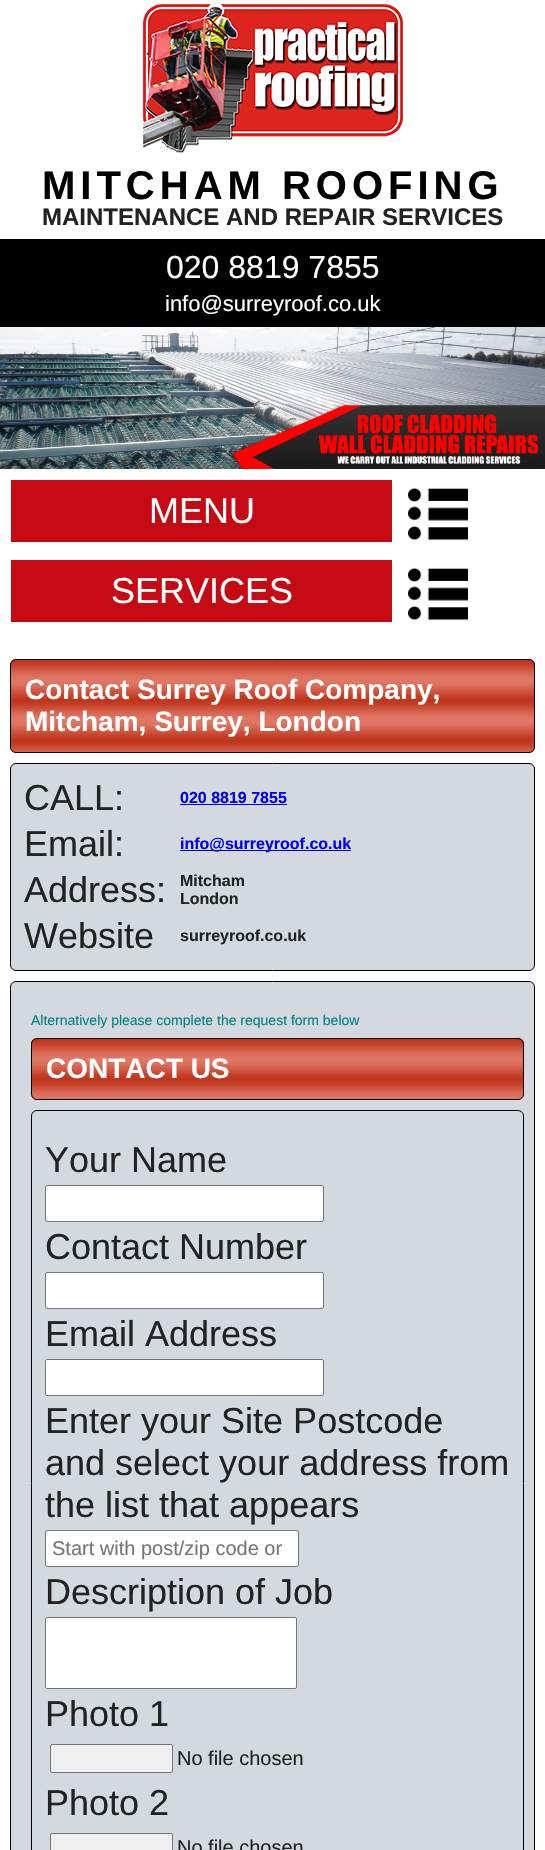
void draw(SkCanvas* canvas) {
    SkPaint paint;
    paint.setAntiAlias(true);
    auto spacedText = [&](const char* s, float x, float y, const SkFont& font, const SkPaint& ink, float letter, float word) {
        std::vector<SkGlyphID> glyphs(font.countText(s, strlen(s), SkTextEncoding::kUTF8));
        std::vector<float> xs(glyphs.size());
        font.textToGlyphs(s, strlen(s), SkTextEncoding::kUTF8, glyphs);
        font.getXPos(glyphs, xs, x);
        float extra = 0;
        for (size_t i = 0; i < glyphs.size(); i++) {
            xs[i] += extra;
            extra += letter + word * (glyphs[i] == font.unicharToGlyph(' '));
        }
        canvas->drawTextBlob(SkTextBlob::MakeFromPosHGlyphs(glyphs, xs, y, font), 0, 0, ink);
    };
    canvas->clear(0xFFFFFFFF);
    canvas->drawImageRect(SkImages::DeferredFromEncodedData(SkData::MakeFromFileName("img1.png")), SkRect::MakeXYWH(143, 2, 260, 151), SkSamplingOptions());
    SkFont font1(fontMgr->matchFamilyStyle("Liberation Sans", SkFontStyle::Bold()), 40);
    font1.setSubpixel(true);
    paint.setColor(0xFF000000);
    spacedText("MITCHAM ROOFING", 42, 199, font1, paint, 5, 0);
    SkFont font2(fontMgr->matchFamilyStyle("Liberation Sans", SkFontStyle::Bold()), 24);
    font2.setSubpixel(true);
    paint.setColor(0xFF222222);
    canvas->drawString("MAINTENANCE AND REPAIR SERVICES", 42, 225, font2, paint);
    paint.setColor(0xFF000000);
    canvas->drawRect(SkRect::MakeXYWH(0, 239, 545, 88), paint);
    SkFont font3(fontMgr->matchFamilyStyle("Liberation Sans", SkFontStyle::Normal()), 32);
    font3.setSubpixel(true);
    paint.setColor(0xFFFFFFFF);
    canvas->drawString("020 8819 7855", 166, 278, font3, paint);
    SkFont font4(fontMgr->matchFamilyStyle("Liberation Sans", SkFontStyle::Normal()), 22);
    font4.setSubpixel(true);
    canvas->drawString("info@surreyroof.co.uk", 165, 311, font4, paint);
    canvas->drawImageRect(SkImages::DeferredFromEncodedData(SkData::MakeFromFileName("img2.png")), SkRect::MakeXYWH(0, 327, 545, 142), SkSamplingOptions());
    paint.setColor(0xFFC50A13);
    canvas->drawRect(SkRect::MakeXYWH(11, 480, 381, 62), paint);
    SkFont font5(fontMgr->matchFamilyStyle("Liberation Sans", SkFontStyle::Normal()), 36);
    font5.setSubpixel(true);
    paint.setColor(0xFFFFFFFF);
    canvas->drawString("MENU", 149, 523, font5, paint);
    canvas->drawImageRect(SkImages::DeferredFromEncodedData(SkData::MakeFromFileName("img3.png")), SkRect::MakeXYWH(408, 487, 60, 54), SkSamplingOptions());
    paint.setColor(0xFFC50A13);
    canvas->drawRect(SkRect::MakeXYWH(11, 560, 381, 62), paint);
    paint.setColor(0xFFFFFFFF);
    canvas->drawString("SERVICES", 111, 603, font5, paint);
    canvas->drawImageRect(SkImages::DeferredFromEncodedData(SkData::MakeFromFileName("img3.png")), SkRect::MakeXYWH(408, 567, 60, 54), SkSamplingOptions());
    canvas->drawImageRect(SkImages::DeferredFromEncodedData(SkData::MakeFromFileName("img4.png")), SkRect::MakeXYWH(10, 659, 525, 94), SkSamplingOptions());
    paint.setStyle(SkPaint::kStroke_Style);
    paint.setStrokeWidth(1);
    paint.setColor(0xFF000000);
    canvas->drawRoundRect(SkRect::MakeXYWH(10.5f, 659.5f, 524, 93), 5.5f, 5.5f, paint);
    SkFont font6(fontMgr->matchFamilyStyle("Liberation Sans", SkFontStyle::Bold()), 28);
    font6.setSubpixel(true);
    paint.setStyle(SkPaint::kFill_Style);
    paint.setColor(0xFFFFFFFF);
    canvas->drawString("Contact Surrey Roof Company,", 25, 699, font6, paint);
    canvas->drawString("Mitcham, Surrey, London", 25, 731, font6, paint);
    paint.setColor(0xFFD3D9DE);
    canvas->drawRoundRect(SkRect::MakeXYWH(10.5f, 763.5f, 524, 207), 5.5f, 5.5f, paint);
    paint.setStyle(SkPaint::kStroke_Style);
    paint.setColor(0xFF000000);
    canvas->drawRoundRect(SkRect::MakeXYWH(10.5f, 763.5f, 524, 207), 5.5f, 5.5f, paint);
    paint.setStyle(SkPaint::kFill_Style);
    paint.setColor(0xFF222222);
    canvas->drawString("CALL:", 24, 810, font5, paint);
    SkFont font7(fontMgr->matchFamilyStyle("Liberation Sans", SkFontStyle::Bold()), 16);
    font7.setSubpixel(true);
    paint.setColor(0xFF0000EE);
    canvas->drawString("020 8819 7855", 180, 803, font7, paint);
    canvas->drawRect(SkRect::MakeXYWH(180, 804, 107, 1), paint);
    paint.setColor(0xFF222222);
    canvas->drawString("Email:", 24, 856, font5, paint);
    paint.setColor(0xFF0000EE);
    canvas->drawRect(SkRect::MakeXYWH(180, 850, 171, 1), paint);
    canvas->drawString("info@surreyroof.co.uk", 180, 849, font7, paint);
    paint.setColor(0xFF222222);
    canvas->drawString("Address:", 24, 902, font5, paint);
    canvas->drawString("Mitcham", 180, 886, font7, paint);
    canvas->drawString("London", 180, 904, font7, paint);
    canvas->drawString("Website", 24, 948, font5, paint);
    canvas->drawString("surreyroof.co.uk", 180, 941, font7, paint);
    paint.setColor(0xFFD3D9DE);
    canvas->drawRoundRect(SkRect::MakeXYWH(10.5f, 981.5f, 524, 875), 5.5f, 5.5f, paint);
    paint.setStyle(SkPaint::kStroke_Style);
    paint.setColor(0xFF000000);
    canvas->drawRoundRect(SkRect::MakeXYWH(10.5f, 981.5f, 524, 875), 5.5f, 5.5f, paint);
    SkFont font8(fontMgr->matchFamilyStyle("Liberation Sans", SkFontStyle::Normal()), 14);
    font8.setSubpixel(true);
    paint.setStyle(SkPaint::kFill_Style);
    paint.setColor(0xFF008080);
    canvas->drawString("Alternatively please complete the request form below", 31, 1025, font8, paint);
    canvas->drawImageRect(SkImages::DeferredFromEncodedData(SkData::MakeFromFileName("img5.png")), SkRect::MakeXYWH(31, 1038, 493, 62), SkSamplingOptions());
    paint.setStyle(SkPaint::kStroke_Style);
    paint.setColor(0xFF000000);
    canvas->drawRoundRect(SkRect::MakeXYWH(31.5f, 1038.5f, 492, 61), 5.5f, 5.5f, paint);
    paint.setStyle(SkPaint::kFill_Style);
    paint.setColor(0xFFFFFFFF);
    canvas->drawString("CONTACT US", 46, 1078, font6, paint);
    paint.setStyle(SkPaint::kStroke_Style);
    paint.setColor(0xFF000000);
    canvas->drawRoundRect(SkRect::MakeXYWH(31.5f, 1110.5f, 492, 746), 5.5f, 5.5f, paint);
    paint.setStyle(SkPaint::kFill_Style);
    paint.setColor(0xFF222222);
    canvas->drawString("Your Name", 45, 1172, font5, paint);
    paint.setColor(0xFFFFFFFF);
    canvas->drawRoundRect(SkRect::MakeXYWH(45.5f, 1185.5f, 278, 36), 1.5f, 1.5f, paint);
    paint.setStyle(SkPaint::kStroke_Style);
    paint.setColor(0xFF767676);
    canvas->drawRoundRect(SkRect::MakeXYWH(45.5f, 1185.5f, 278, 36), 1.5f, 1.5f, paint);
    paint.setStyle(SkPaint::kFill_Style);
    paint.setColor(0xFF222222);
    canvas->drawString("Contact Number", 45, 1259, font5, paint);
    paint.setColor(0xFFFFFFFF);
    canvas->drawRoundRect(SkRect::MakeXYWH(45.5f, 1272.5f, 278, 36), 1.5f, 1.5f, paint);
    paint.setStyle(SkPaint::kStroke_Style);
    paint.setColor(0xFF767676);
    canvas->drawRoundRect(SkRect::MakeXYWH(45.5f, 1272.5f, 278, 36), 1.5f, 1.5f, paint);
    paint.setStyle(SkPaint::kFill_Style);
    paint.setColor(0xFF222222);
    canvas->drawString("Email Address", 45, 1346, font5, paint);
    paint.setColor(0xFFFFFFFF);
    canvas->drawRoundRect(SkRect::MakeXYWH(45.5f, 1359.5f, 278, 36), 1.5f, 1.5f, paint);
    paint.setStyle(SkPaint::kStroke_Style);
    paint.setColor(0xFF767676);
    canvas->drawRoundRect(SkRect::MakeXYWH(45.5f, 1359.5f, 278, 36), 1.5f, 1.5f, paint);
    paint.setStyle(SkPaint::kFill_Style);
    paint.setColor(0xFF222222);
    canvas->drawString("Enter your Site Postcode", 45, 1433, font5, paint);
    canvas->drawString("and select your address from", 45, 1475, font5, paint);
    canvas->drawString("the list that appears", 45, 1517, font5, paint);
    paint.setColor(0xFFFFFFFF);
    canvas->drawRoundRect(SkRect::MakeXYWH(45.5f, 1530.5f, 253, 36), 1.5f, 1.5f, paint);
    paint.setStyle(SkPaint::kStroke_Style);
    paint.setColor(0xFF767676);
    canvas->drawRoundRect(SkRect::MakeXYWH(45.5f, 1530.5f, 253, 36), 1.5f, 1.5f, paint);
    SkFont font9(fontMgr->matchFamilyStyle("Liberation Sans", SkFontStyle::Normal()), 20);
    font9.setSubpixel(true);
    paint.setStyle(SkPaint::kFill_Style);
    paint.setColor(0xFF757575);
    canvas->drawString("Start with post/zip code or", 52, 1555, font9, paint);
    paint.setColor(0xFF222222);
    canvas->drawString("Description of Job", 45, 1604, font5, paint);
    paint.setColor(0xFFFFFFFF);
    canvas->drawRoundRect(SkRect::MakeXYWH(45.5f, 1617.5f, 251, 71), 1.5f, 1.5f, paint);
    paint.setStyle(SkPaint::kStroke_Style);
    paint.setColor(0xFF767676);
    canvas->drawRoundRect(SkRect::MakeXYWH(45.5f, 1617.5f, 251, 71), 1.5f, 1.5f, paint);
    paint.setStyle(SkPaint::kFill_Style);
    paint.setColor(0xFF222222);
    canvas->drawString("Photo 1", 45, 1726, font5, paint);
    paint.setColor(0xFFEFEFEF);
    canvas->drawRoundRect(SkRect::MakeXYWH(50.5f, 1744.5f, 122, 28), 1.5f, 1.5f, paint);
    paint.setStyle(SkPaint::kStroke_Style);
    paint.setColor(0xFF767676);
    canvas->drawRoundRect(SkRect::MakeXYWH(50.5f, 1744.5f, 122, 28), 1.5f, 1.5f, paint);
    paint.setStyle(SkPaint::kFill_Style);
    paint.setColor(0xFF222222);
    canvas->drawString("No file chosen", 177, 1765, font9, paint);
    canvas->drawString("Photo 2", 45, 1815, font5, paint);
    paint.setColor(0xFFEFEFEF);
    canvas->drawRoundRect(SkRect::MakeXYWH(50.5f, 1833.5f, 122, 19), 1.5f, 1.5f, paint);
    paint.setStyle(SkPaint::kStroke_Style);
    paint.setColor(0xFF767676);
    canvas->drawRoundRect(SkRect::MakeXYWH(50.5f, 1833.5f, 122, 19), 1.5f, 1.5f, paint);
    paint.setStyle(SkPaint::kFill_Style);
    paint.setColor(0xFF222222);
    canvas->drawString("No file chosen", 177, 1854, font9, paint);
}
